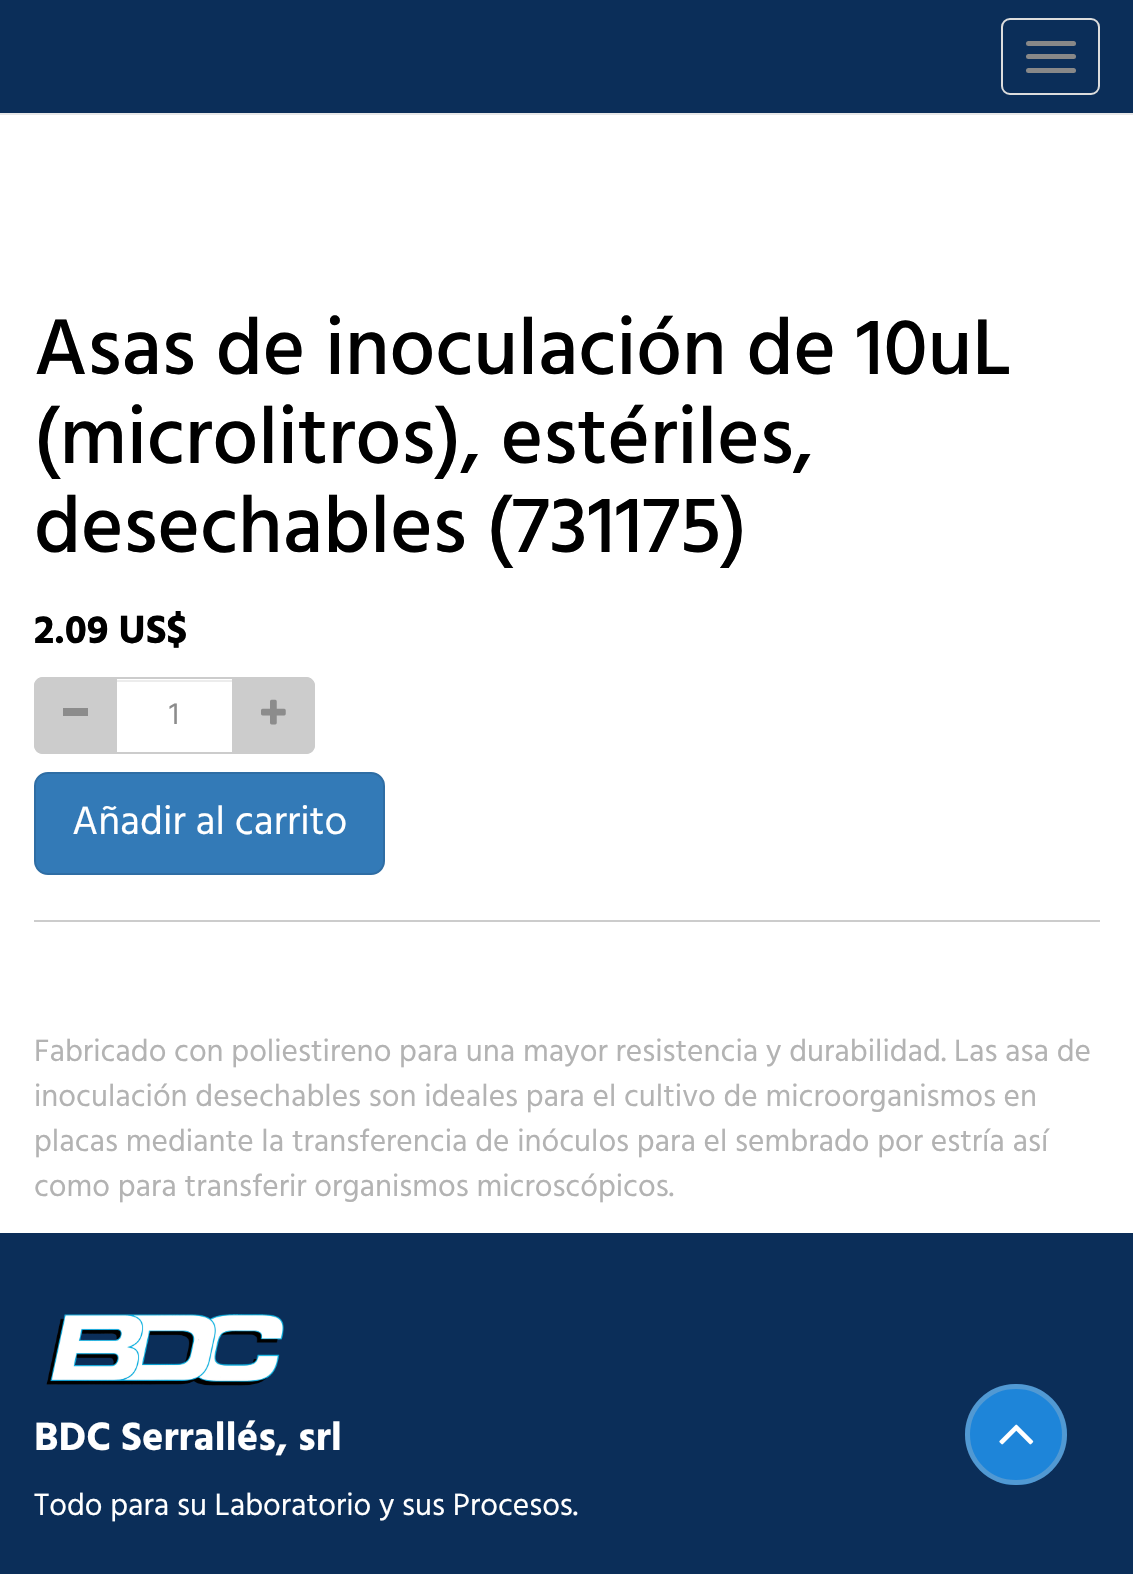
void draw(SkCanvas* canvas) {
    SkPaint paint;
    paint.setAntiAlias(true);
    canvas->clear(0xFFFFFFFF);
    paint.setColor(0xFF0B2E59);
    canvas->drawRect(SkRect::MakeXYWH(0, 0, 1133, 113), paint);
    paint.setColor(0xFFE7E7E7);
    canvas->drawRect(SkRect::MakeXYWH(0, 113, 1133, 2), paint);
    paint.setStyle(SkPaint::kStroke_Style);
    paint.setStrokeWidth(2);
    paint.setColor(0xFFDDDDDD);
    canvas->drawRoundRect(SkRect::MakeXYWH(1002, 19, 97, 75), 8, 8, paint);
    paint.setStyle(SkPaint::kFill_Style);
    paint.setColor(0xFF888888);
    canvas->drawRoundRect(SkRect::MakeXYWH(1026, 41, 50, 5), 2.5f, 2.5f, paint);
    canvas->drawRoundRect(SkRect::MakeXYWH(1026, 54, 50, 5), 2.5f, 2.5f, paint);
    canvas->drawRoundRect(SkRect::MakeXYWH(1026, 68, 50, 5), 2.5f, 2.5f, paint);
    SkFont font1(fontMgr->matchFamilyStyle("Hind Madurai", SkFontStyle(500, SkFontStyle::kNormal_Width, SkFontStyle::kUpright_Slant)), 81);
    font1.setSubpixel(true);
    paint.setColor(0xFF000000);
    canvas->drawString("Asas de inoculación de 10uL", 34, 374, font1, paint);
    canvas->drawString("(microlitros), estériles,", 34, 463, font1, paint);
    canvas->drawString("desechables (731175)", 34, 552, font1, paint);
    SkFont font2(fontMgr->matchFamilyStyle("Hind Madurai", SkFontStyle::Bold()), 40.5f);
    font2.setSubpixel(true);
    canvas->drawString("2.09 US$", 34, 643, font2, paint);
    paint.setColor(0xFFCCCCCC);
    canvas->drawPath(SkPathBuilder().moveTo(43, 677).lineTo(115, 677).lineTo(115, 754).lineTo(43, 754).cubicTo(38, 754, 34, 750, 34, 745).lineTo(34, 686).cubicTo(34, 681, 38, 677, 43, 677).close().detach(), paint);
    canvas->drawPath(SkPathBuilder(SkPathFillType::kEvenOdd).moveTo(43, 677).lineTo(115, 677).lineTo(115, 754).lineTo(43, 754).cubicTo(38, 754, 34, 750, 34, 745).lineTo(34, 686).cubicTo(34, 681, 38, 677, 43, 677).close().moveTo(43, 680).lineTo(115, 680).lineTo(115, 752).lineTo(43, 752).cubicTo(39, 752, 36, 748, 36, 745).lineTo(36, 686).cubicTo(36, 683, 39, 680, 43, 680).close().detach(), paint);
    paint.setColor(0xFF8C8C8C);
    canvas->drawRect(SkRect::MakeXYWH(63, 708, 25, 8), paint);
    paint.setColor(0xFFECECEC);
    canvas->drawRect(SkRect::MakeXYWH(117, 680, 115, 2), paint);
    paint.setStyle(SkPaint::kStroke_Style);
    paint.setColor(0xFFCCCCCC);
    canvas->drawRect(SkRect::MakeXYWH(116, 678, 117, 75), paint);
    SkFont font3(fontMgr->matchFamilyStyle("Hind Madurai", SkFontStyle::Normal()), 31.5f);
    font3.setSubpixel(true);
    paint.setStyle(SkPaint::kFill_Style);
    paint.setColor(0xFF8C8C8C);
    canvas->drawString("1", 169, 724, font3, paint);
    paint.setColor(0xFFCCCCCC);
    canvas->drawPath(SkPathBuilder().moveTo(234, 677).lineTo(306, 677).cubicTo(311, 677, 315, 681, 315, 686).lineTo(315, 745).cubicTo(315, 750, 311, 754, 306, 754).lineTo(234, 754).close().detach(), paint);
    canvas->drawPath(SkPathBuilder(SkPathFillType::kEvenOdd).moveTo(234, 677).lineTo(306, 677).cubicTo(311, 677, 315, 681, 315, 686).lineTo(315, 745).cubicTo(315, 750, 311, 754, 306, 754).lineTo(234, 754).close().moveTo(234, 680).lineTo(306, 680).cubicTo(310, 680, 313, 683, 313, 686).lineTo(313, 745).cubicTo(313, 748, 310, 752, 306, 752).lineTo(234, 752).close().detach(), paint);
    canvas->drawImageRect(SkImages::DeferredFromEncodedData(SkData::MakeFromFileName("img1.png")), SkRect::MakeXYWH(261, 699, 25, 26), SkSamplingOptions());
    paint.setColor(0xFF337AB7);
    canvas->drawRoundRect(SkRect::MakeXYWH(35, 773, 349, 101), 13, 13, paint);
    paint.setStyle(SkPaint::kStroke_Style);
    paint.setColor(0xFF2E6DA4);
    canvas->drawRoundRect(SkRect::MakeXYWH(35, 773, 349, 101), 13, 13, paint);
    SkFont font4(fontMgr->matchFamilyStyle("Hind Madurai", SkFontStyle::Normal()), 40.5f);
    font4.setSubpixel(true);
    paint.setStyle(SkPaint::kFill_Style);
    paint.setColor(0xFFFFFFFF);
    canvas->drawString("Añadir al carrito", 72, 834, font4, paint);
    paint.setColor(0xFFCCCCCC);
    canvas->drawRect(SkRect::MakeXYWH(34, 920, 1066, 2), paint);
    paint.setColor(0xFFB3B3B3);
    canvas->drawString("Fabricado con poliestireno para una mayor resistencia y durabilidad. Las asa de", 34, 1061, font3, paint);
    canvas->drawString("inoculación desechables son ideales para el cultivo de microorganismos en", 34, 1106, font3, paint);
    canvas->drawString("placas mediante la transferencia de inóculos para el sembrado por estría así", 34, 1151, font3, paint);
    canvas->drawString("como para transferir organismos microscópicos.", 34, 1196, font3, paint);
    paint.setColor(0xFF0B2E59);
    canvas->drawRect(SkRect::MakeXYWH(0, 1233, 1133, 341), paint);
    canvas->drawImageRect(SkImages::DeferredFromEncodedData(SkData::MakeFromFileName("img2.png")), SkRect::MakeXYWH(46, 1314, 238, 72), SkSamplingOptions());
    paint.setColor(0xFFFFFFFF);
    canvas->drawString("BDC Serrallés, srl", 34, 1450, font2, paint);
    canvas->drawString("Todo para su Laboratorio y sus Procesos.", 34, 1515, font3, paint);
    paint.setColor(0xFF1E85D9);
    canvas->drawRoundRect(SkRect::MakeXYWH(965, 1384, 102, 101), 50.5f, 50.5f, paint);
    paint.setStyle(SkPaint::kStroke_Style);
    paint.setStrokeWidth(5);
    paint.setColor(0x4DC7C7C7);
    canvas->drawRoundRect(SkRect::MakeXYWH(967.5f, 1386.5f, 97, 96), 48, 48, paint);
    canvas->drawImageRect(SkImages::DeferredFromEncodedData(SkData::MakeFromFileName("img3.png")), SkRect::MakeXYWH(999, 1424, 35, 21), SkSamplingOptions());
}
